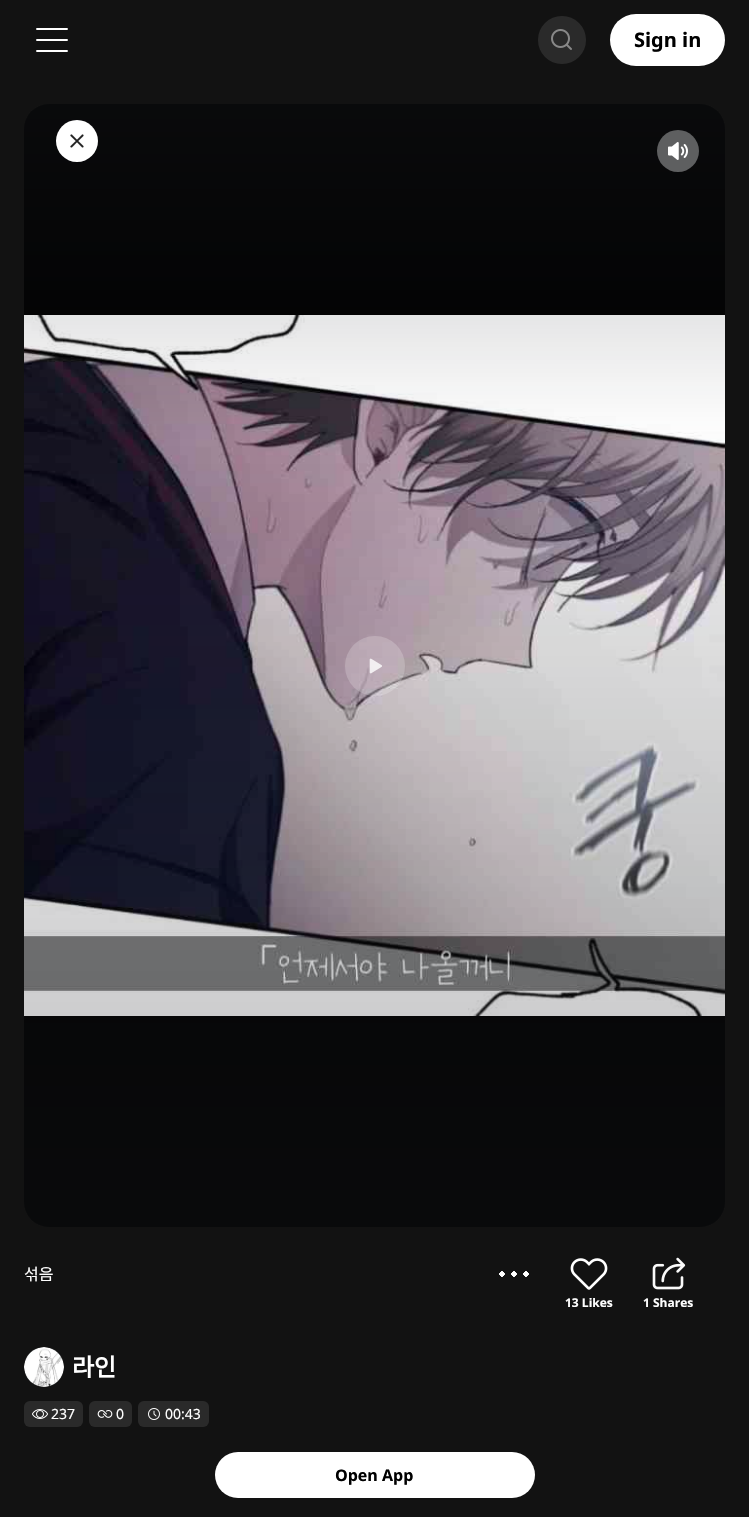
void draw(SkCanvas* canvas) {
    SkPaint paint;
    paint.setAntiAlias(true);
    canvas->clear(0xFF121212);
    canvas->drawImageRect(SkImages::DeferredFromEncodedData(SkData::MakeFromFileName("img1.png")), SkRect::MakeXYWH(36, 28, 32, 24), SkSamplingOptions());
    paint.setColor(0xFF2A2A2A);
    canvas->drawCircle(562, 40, 24, paint);
    canvas->drawImageRect(SkImages::DeferredFromEncodedData(SkData::MakeFromFileName("img2.png")), SkRect::MakeXYWH(551, 29, 21, 21), SkSamplingOptions());
    paint.setColor(0xFFFFFFFF);
    canvas->drawRoundRect(SkRect::MakeXYWH(610, 14, 115, 52), 26, 26, paint);
    SkFont font1(fontMgr->matchFamilyStyle("Noto Sans", SkFontStyle::Bold()), 20);
    font1.setSubpixel(true);
    paint.setColor(0xFF000000);
    canvas->drawString("Sign in", 634, 47, font1, paint);
    canvas->drawRoundRect(SkRect::MakeXYWH(24, 104, 701, 1123), 25, 25, paint);
    canvas->drawImageRect(SkImages::DeferredFromEncodedData(SkData::MakeFromFileName("img6.png")), SkRect::MakeXYWH(24, 315, 701, 701), SkSamplingOptions());
    {
        const SkColor colors[] = {0x4D1F2126, 0x121F2126, 0x001F2126, 0x4D1F2126};
        const float stops[] = {0, 0.55f, 0.7f, 1};
        const SkPoint ends[] = {{375, 1227}, {375, 104}};
        paint.setShader(SkGradientShader::MakeLinear(ends, colors, stops, 4, SkTileMode::kClamp));
        paint.setAlpha(255);
    }
    canvas->drawRoundRect(SkRect::MakeXYWH(24, 104, 701, 1123), 25, 25, paint);
    paint.setShader(nullptr);
    paint.setColor(0xFFFFFFFF);
    canvas->drawCircle(77, 141, 21, paint);
    canvas->drawImageRect(SkImages::DeferredFromEncodedData(SkData::MakeFromFileName("img3.png")), SkRect::MakeXYWH(70, 134, 14, 14), SkSamplingOptions());
    paint.setColor(0xFF5E5F60);
    canvas->drawCircle(678, 151, 21, paint);
    canvas->drawImageRect(SkImages::DeferredFromEncodedData(SkData::MakeFromFileName("img4.png")), SkRect::MakeXYWH(668, 142, 20, 18), SkSamplingOptions());
    paint.setColor(0x33FFFFFF);
    canvas->drawCircle(375, 666, 30, paint);
    canvas->drawImageRect(SkImages::DeferredFromEncodedData(SkData::MakeFromFileName("img5.png")), SkRect::MakeXYWH(369, 658, 13, 16), SkSamplingOptions());
    SkFont font2(fontMgr->matchFamilyStyle("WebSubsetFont", SkFontStyle::Normal()), 16);
    font2.setSubpixel(true);
    paint.setColor(0xFFFFFFFF);
    canvas->drawString("섞음", 24, 1280, font2, paint);
    canvas->drawImageRect(SkImages::DeferredFromEncodedData(SkData::MakeFromFileName("img7.png")), SkRect::MakeXYWH(499, 1271, 30, 6), SkSamplingOptions());
    canvas->drawImageRect(SkImages::DeferredFromEncodedData(SkData::MakeFromFileName("img8.png")), SkRect::MakeXYWH(570, 1258, 38, 32), SkSamplingOptions());
    SkFont font3(fontMgr->matchFamilyStyle("Noto Sans", SkFontStyle::Bold()), 12);
    font3.setSubpixel(true);
    canvas->drawString("13 Likes", 565, 1307, font3, paint);
    canvas->drawImageRect(SkImages::DeferredFromEncodedData(SkData::MakeFromFileName("img9.png")), SkRect::MakeXYWH(652, 1257, 34, 33), SkSamplingOptions());
    canvas->drawString("1 Shares", 643, 1307, font3, paint);
    canvas->drawImageRect(SkImages::DeferredFromEncodedData(SkData::MakeFromFileName("img10.png")), SkRect::MakeXYWH(24, 1347, 40, 40), SkSamplingOptions());
    SkFont font4(fontMgr->matchFamilyStyle("WebSubsetFont", SkFontStyle::Bold()), 24);
    font4.setSubpixel(true);
    canvas->drawString("라인", 72, 1376, font4, paint);
    paint.setColor(0xFF2A2A2A);
    canvas->drawRoundRect(SkRect::MakeXYWH(24, 1401, 59, 26), 6, 6, paint);
    canvas->drawImageRect(SkImages::DeferredFromEncodedData(SkData::MakeFromFileName("img11.png")), SkRect::MakeXYWH(32, 1409, 16, 10), SkSamplingOptions());
    SkFont font5(fontMgr->matchFamilyStyle("Noto Sans", SkFontStyle::Normal()), 14);
    font5.setSubpixel(true);
    paint.setColor(0xFFFFFFFF);
    canvas->drawString("237", 51, 1419, font5, paint);
    paint.setColor(0xFF2A2A2A);
    canvas->drawRoundRect(SkRect::MakeXYWH(89, 1401, 43, 26), 6, 6, paint);
    canvas->drawImageRect(SkImages::DeferredFromEncodedData(SkData::MakeFromFileName("img12.png")), SkRect::MakeXYWH(97, 1410, 16, 8), SkSamplingOptions());
    paint.setColor(0xFFFFFFFF);
    canvas->drawString("0", 116, 1419, font5, paint);
    paint.setColor(0xFF2A2A2A);
    canvas->drawRoundRect(SkRect::MakeXYWH(138, 1401, 71, 26), 6, 6, paint);
    canvas->drawImageRect(SkImages::DeferredFromEncodedData(SkData::MakeFromFileName("img13.png")), SkRect::MakeXYWH(148, 1408, 12, 12), SkSamplingOptions());
    paint.setColor(0xFFFFFFFF);
    canvas->drawString("00:43", 165, 1419, font5, paint);
    canvas->drawRoundRect(SkRect::MakeXYWH(215, 1452, 320, 46), 23, 23, paint);
    SkFont font6(fontMgr->matchFamilyStyle("Noto Sans", SkFontStyle::Bold()), 16);
    font6.setSubpixel(true);
    paint.setColor(0xFF000000);
    canvas->drawString("Open App", 335, 1481, font6, paint);
}
